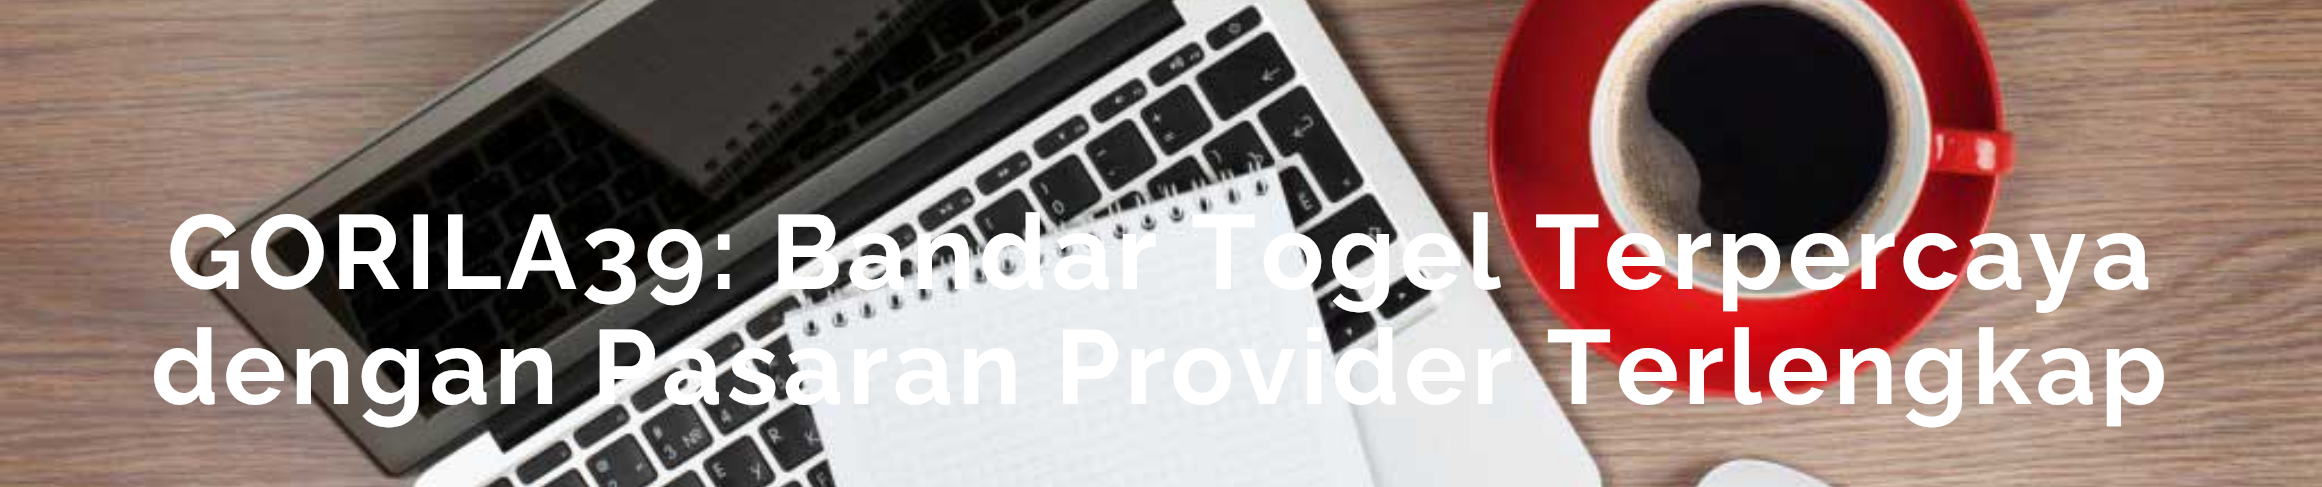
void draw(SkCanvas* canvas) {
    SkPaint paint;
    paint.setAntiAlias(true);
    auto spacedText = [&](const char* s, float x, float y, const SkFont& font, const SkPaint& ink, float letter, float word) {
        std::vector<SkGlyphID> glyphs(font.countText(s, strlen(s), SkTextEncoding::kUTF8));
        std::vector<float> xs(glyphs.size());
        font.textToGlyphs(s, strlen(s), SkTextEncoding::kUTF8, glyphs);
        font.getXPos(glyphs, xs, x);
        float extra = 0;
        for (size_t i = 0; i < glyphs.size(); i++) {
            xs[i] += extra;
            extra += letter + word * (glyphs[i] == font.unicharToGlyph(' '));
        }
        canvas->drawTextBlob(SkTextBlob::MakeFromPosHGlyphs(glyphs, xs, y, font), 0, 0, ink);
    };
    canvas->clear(0xFFFFFFFF);
    canvas->drawImageRect(SkImages::DeferredFromEncodedData(SkData::MakeFromFileName("img1.png")), SkRect::MakeXYWH(0, 0, 2322, 487), SkSamplingOptions());
    SkFont font1(fontMgr->matchFamilyStyle("Raleway", SkFontStyle::Bold()), 105);
    font1.setSubpixel(true);
    paint.setColor(0xFFFFFFFF);
    spacedText("GORILA39: Bandar Togel Terpercaya", 167, 289, font1, paint, 4.5f, 0);
    spacedText("dengan Pasaran Provider Terlengkap", 151, 404, font1, paint, 4.5f, 0);
}
